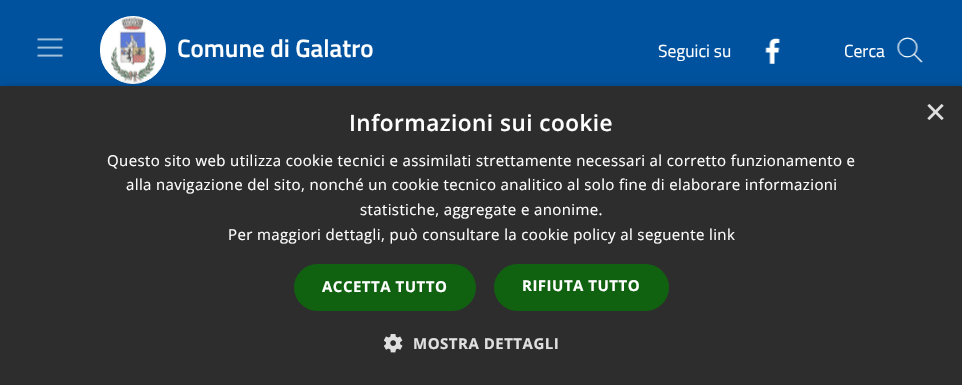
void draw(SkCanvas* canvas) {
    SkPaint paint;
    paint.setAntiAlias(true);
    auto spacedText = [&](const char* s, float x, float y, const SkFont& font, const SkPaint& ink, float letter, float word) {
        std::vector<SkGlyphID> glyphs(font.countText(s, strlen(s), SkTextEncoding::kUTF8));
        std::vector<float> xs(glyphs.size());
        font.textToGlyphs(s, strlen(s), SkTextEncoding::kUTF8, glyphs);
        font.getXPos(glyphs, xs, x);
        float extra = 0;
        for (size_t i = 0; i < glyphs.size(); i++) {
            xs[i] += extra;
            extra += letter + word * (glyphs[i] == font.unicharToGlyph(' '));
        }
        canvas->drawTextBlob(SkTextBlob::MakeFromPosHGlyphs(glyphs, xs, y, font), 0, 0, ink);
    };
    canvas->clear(0xFF00529E);
    canvas->drawImageRect(SkImages::DeferredFromEncodedData(SkData::MakeFromFileName("img1.png")), SkRect::MakeXYWH(37, 38, 26, 19), SkSamplingOptions());
    paint.setColor(0xFFFFFFFF);
    canvas->drawRoundRect(SkRect::MakeXYWH(100.5f, 16.5f, 65, 67), 32.5f, 32.5f, paint);
    paint.setStyle(SkPaint::kStroke_Style);
    paint.setStrokeWidth(1);
    canvas->drawRoundRect(SkRect::MakeXYWH(100.5f, 16.5f, 65, 67), 32.5f, 32.5f, paint);
    canvas->drawImageRect(SkImages::DeferredFromEncodedData(SkData::MakeFromFileName("img2.png")), SkRect::MakeXYWH(111, 17, 44, 66), SkSamplingOptions());
    SkFont font1(fontMgr->matchFamilyStyle("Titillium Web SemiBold", SkFontStyle(600, SkFontStyle::kNormal_Width, SkFontStyle::kUpright_Slant)), 25);
    font1.setSubpixel(true);
    paint.setStyle(SkPaint::kFill_Style);
    canvas->drawString("Comune di Galatro", 177, 57, font1, paint);
    SkFont font2(fontMgr->matchFamilyStyle("Titillium Web", SkFontStyle::Normal()), 17.5f);
    font2.setSubpixel(true);
    canvas->drawString("Seguici su", 658, 57, font2, paint);
    canvas->drawImageRect(SkImages::DeferredFromEncodedData(SkData::MakeFromFileName("img3.png")), SkRect::MakeXYWH(765, 38, 15, 26), SkSamplingOptions());
    canvas->drawString("Cerca", 844, 57, font2, paint);
    canvas->drawImageRect(SkImages::DeferredFromEncodedData(SkData::MakeFromFileName("img4.png")), SkRect::MakeXYWH(897, 37, 26, 26), SkSamplingOptions());
    paint.setColor(0x59000000);
    paint.setMaskFilter(SkMaskFilter::MakeBlur(kNormal_SkBlurStyle, 5));
    canvas->drawRect(SkRect::MakeXYWH(1, 89, 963, 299), paint);
    paint.setMaskFilter(nullptr);
    paint.setColor(0xFF2D2D2D);
    canvas->drawRect(SkRect::MakeXYWH(0, 86, 962, 299), paint);
    SkFont font3(fontMgr->matchFamilyStyle("Open Sans", SkFontStyle(600, SkFontStyle::kNormal_Width, SkFontStyle::kUpright_Slant)), 22.5f);
    font3.setSubpixel(true);
    paint.setColor(0xFFFFFFFF);
    spacedText("Informazioni sui cookie", 349, 131, font3, paint, 0.5f, 0);
    SkFont font4(fontMgr->matchFamilyStyle("Liberation Sans", SkFontStyle::Normal()), 36);
    font4.setSubpixel(true);
    paint.setColor(0xFFE0E0E0);
    canvas->drawString("×", 925, 124, font4, paint);
    SkFont font5(fontMgr->matchFamilyStyle("Open Sans", SkFontStyle::Normal()), 15);
    font5.setSubpixel(true);
    paint.setColor(0xFFFFFFFF);
    spacedText("Questo sito web utilizza cookie tecnici e assimilati strettamente necessari al corretto funzionamento e", 107, 166, font5, paint, 0.38f, 0);
    spacedText("alla navigazione del sito, nonché un cookie tecnico analitico al solo fine di elaborare informazioni", 126, 190, font5, paint, 0.38f, 0);
    spacedText("statistiche, aggregate e anonime.", 360, 215, font5, paint, 0.38f, 0);
    spacedText("Per maggiori dettagli, può consultare la cookie policy al seguente link", 228, 240, font5, paint, 0.38f, 0);
    paint.setColor(0xFF106110);
    canvas->drawRoundRect(SkRect::MakeXYWH(294, 264, 182, 47), 23.5f, 23.5f, paint);
    SkFont font6(fontMgr->matchFamilyStyle("Open Sans", SkFontStyle::Bold()), 15);
    font6.setSubpixel(true);
    paint.setColor(0xFFFFFFFF);
    spacedText("ACCETTA TUTTO", 322, 292, font6, paint, 0.5f, 0);
    paint.setColor(0xFF106110);
    canvas->drawRoundRect(SkRect::MakeXYWH(494, 264, 175, 47), 23.5f, 23.5f, paint);
    paint.setColor(0xFFFFFFFF);
    spacedText("RIFIUTA TUTTO", 522, 291, font6, paint, 0.5f, 0);
    canvas->drawImageRect(SkImages::DeferredFromEncodedData(SkData::MakeFromFileName("img5.png")), SkRect::MakeXYWH(384, 334, 19, 19), SkSamplingOptions());
    paint.setColor(0xFFE0E0E0);
    spacedText("MOSTRA DETTAGLI", 413, 349, font6, paint, 0.5f, 0);
}
